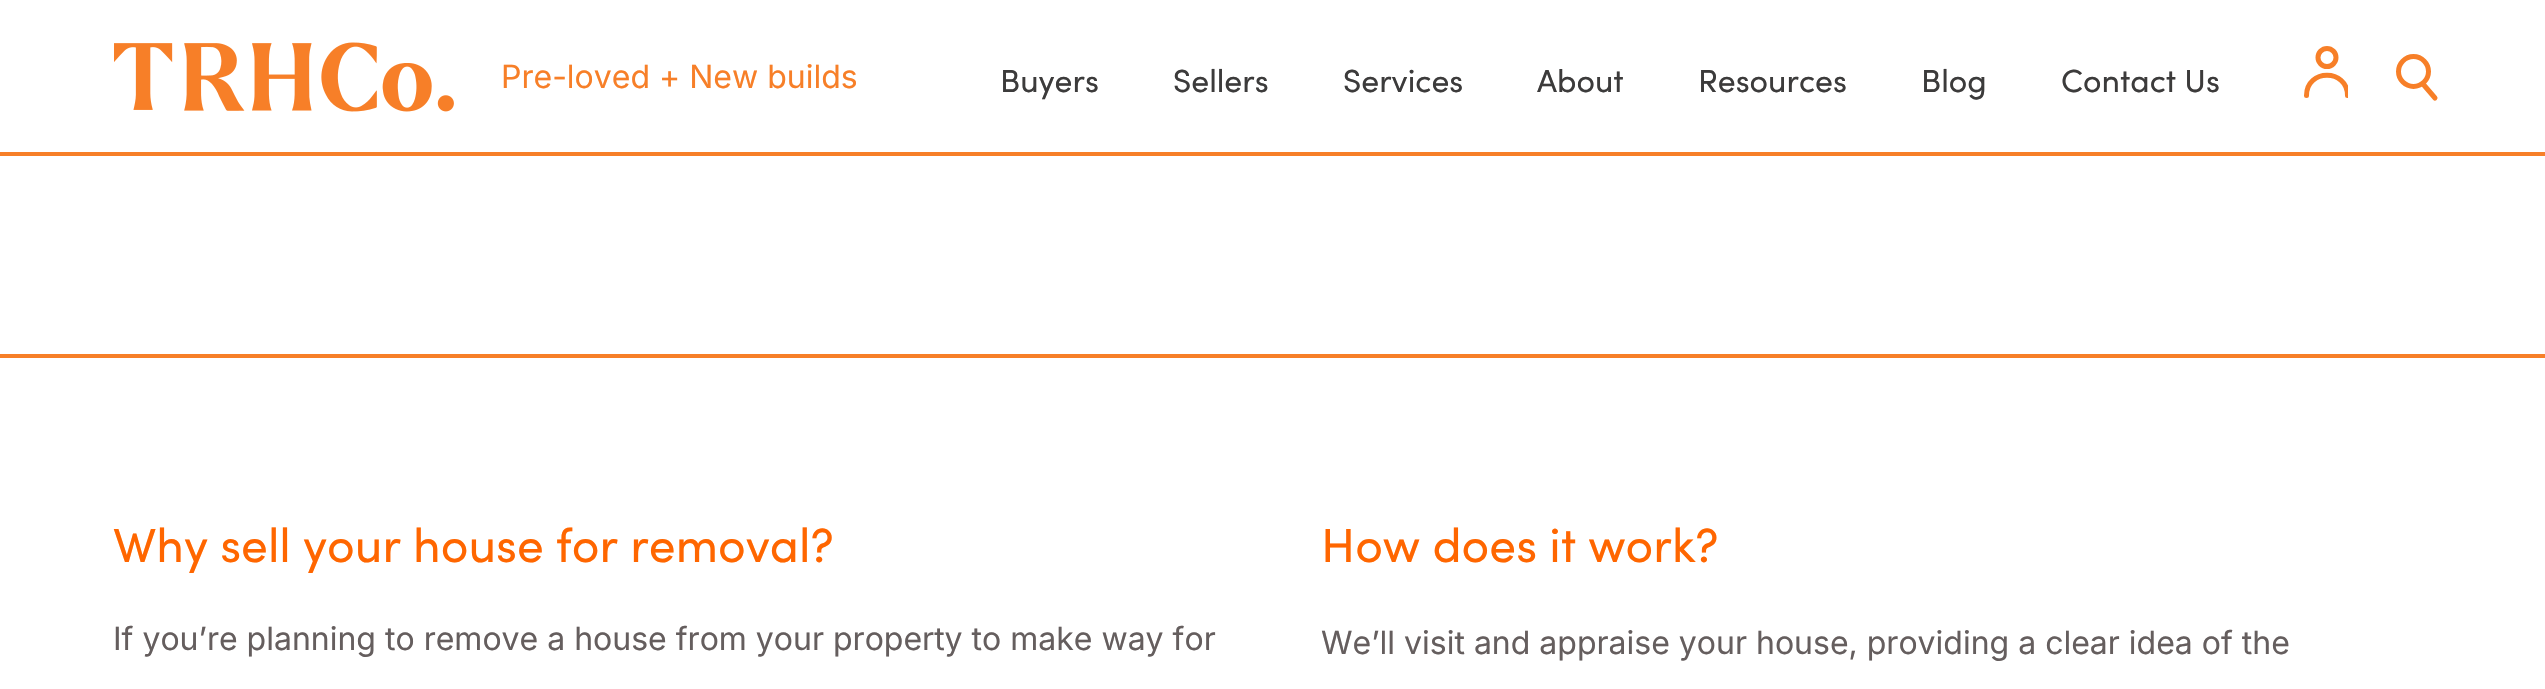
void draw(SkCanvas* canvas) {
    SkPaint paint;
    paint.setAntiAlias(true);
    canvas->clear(0xFFFFFFFF);
    paint.setColor(0xFFF77F28);
    canvas->drawRect(SkRect::MakeXYWH(0, 152, 2545, 4), paint);
    canvas->drawImageRect(SkImages::DeferredFromEncodedData(SkData::MakeFromFileName("img1.png")), SkRect::MakeXYWH(114, 42, 340, 70), SkSamplingOptions());
    SkFont font1(fontMgr->matchFamilyStyle("Inter", SkFontStyle::Normal()), 32);
    font1.setSubpixel(true);
    canvas->drawString("Pre-loved + New builds", 501, 88, font1, paint);
    SkFont font2(fontMgr->matchFamilyStyle("Sofia", SkFontStyle::Normal()), 32);
    font2.setSubpixel(true);
    paint.setColor(0xFF3C3B3B);
    canvas->drawString("Buyers", 1000, 92, font2, paint);
    canvas->drawString("Sellers", 1173, 92, font2, paint);
    canvas->drawString("Services", 1343, 92, font2, paint);
    canvas->drawString("About", 1537, 92, font2, paint);
    canvas->drawString("Resources", 1698, 92, font2, paint);
    canvas->drawString("Blog", 1921, 92, font2, paint);
    canvas->drawString("Contact Us", 2061, 92, font2, paint);
    paint.setStyle(SkPaint::kStroke_Style);
    paint.setStrokeWidth(5);
    paint.setColor(0xFFF77F28);
    canvas->drawCircle(2327, 57.5f, 9, paint);
    canvas->save();
    canvas->clipRect(SkRect::MakeXYWH(2304, 46, 44, 52));
    paint.setStrokeCap(SkPaint::kRound_Cap);
    paint.setStrokeJoin(SkPaint::kRound_Join);
    canvas->drawPath(SkPathBuilder().moveTo(2306.5f, 95.5f).cubicTo(2306.5f, 68.5f, 2347.5f, 68.5f, 2347.5f, 95.5f).detach(), paint);
    canvas->restore();
    paint.setStrokeCap(SkPaint::kButt_Cap);
    paint.setStrokeJoin(SkPaint::kMiter_Join);
    canvas->drawCircle(2413.5f, 71.5f, 15, paint);
    paint.setStrokeCap(SkPaint::kRound_Cap);
    paint.setStrokeJoin(SkPaint::kRound_Join);
    canvas->drawPath(SkPathBuilder().moveTo(2423, 84).lineTo(2435, 98).detach(), paint);
    paint.setStyle(SkPaint::kFill_Style);
    canvas->drawRect(SkRect::MakeXYWH(0, 354, 2545, 4), paint);
    SkFont font3(fontMgr->matchFamilyStyle("Sofia", SkFontStyle::Normal()), 48);
    font3.setSubpixel(true);
    paint.setColor(0xFFFF6600);
    canvas->drawString("Why sell your house for removal?", 113, 562, font3, paint);
    paint.setColor(0xFF655E5E);
    canvas->drawString("If you’re planning to remove a house from your property to make way for", 113, 650, font1, paint);
    paint.setColor(0xFFFF6600);
    canvas->drawString("How does it work?", 1321, 562, font3, paint);
    paint.setColor(0xFF655E5E);
    canvas->drawString("We’ll visit and appraise your house, providing a clear idea of the", 1321, 654, font1, paint);
}
